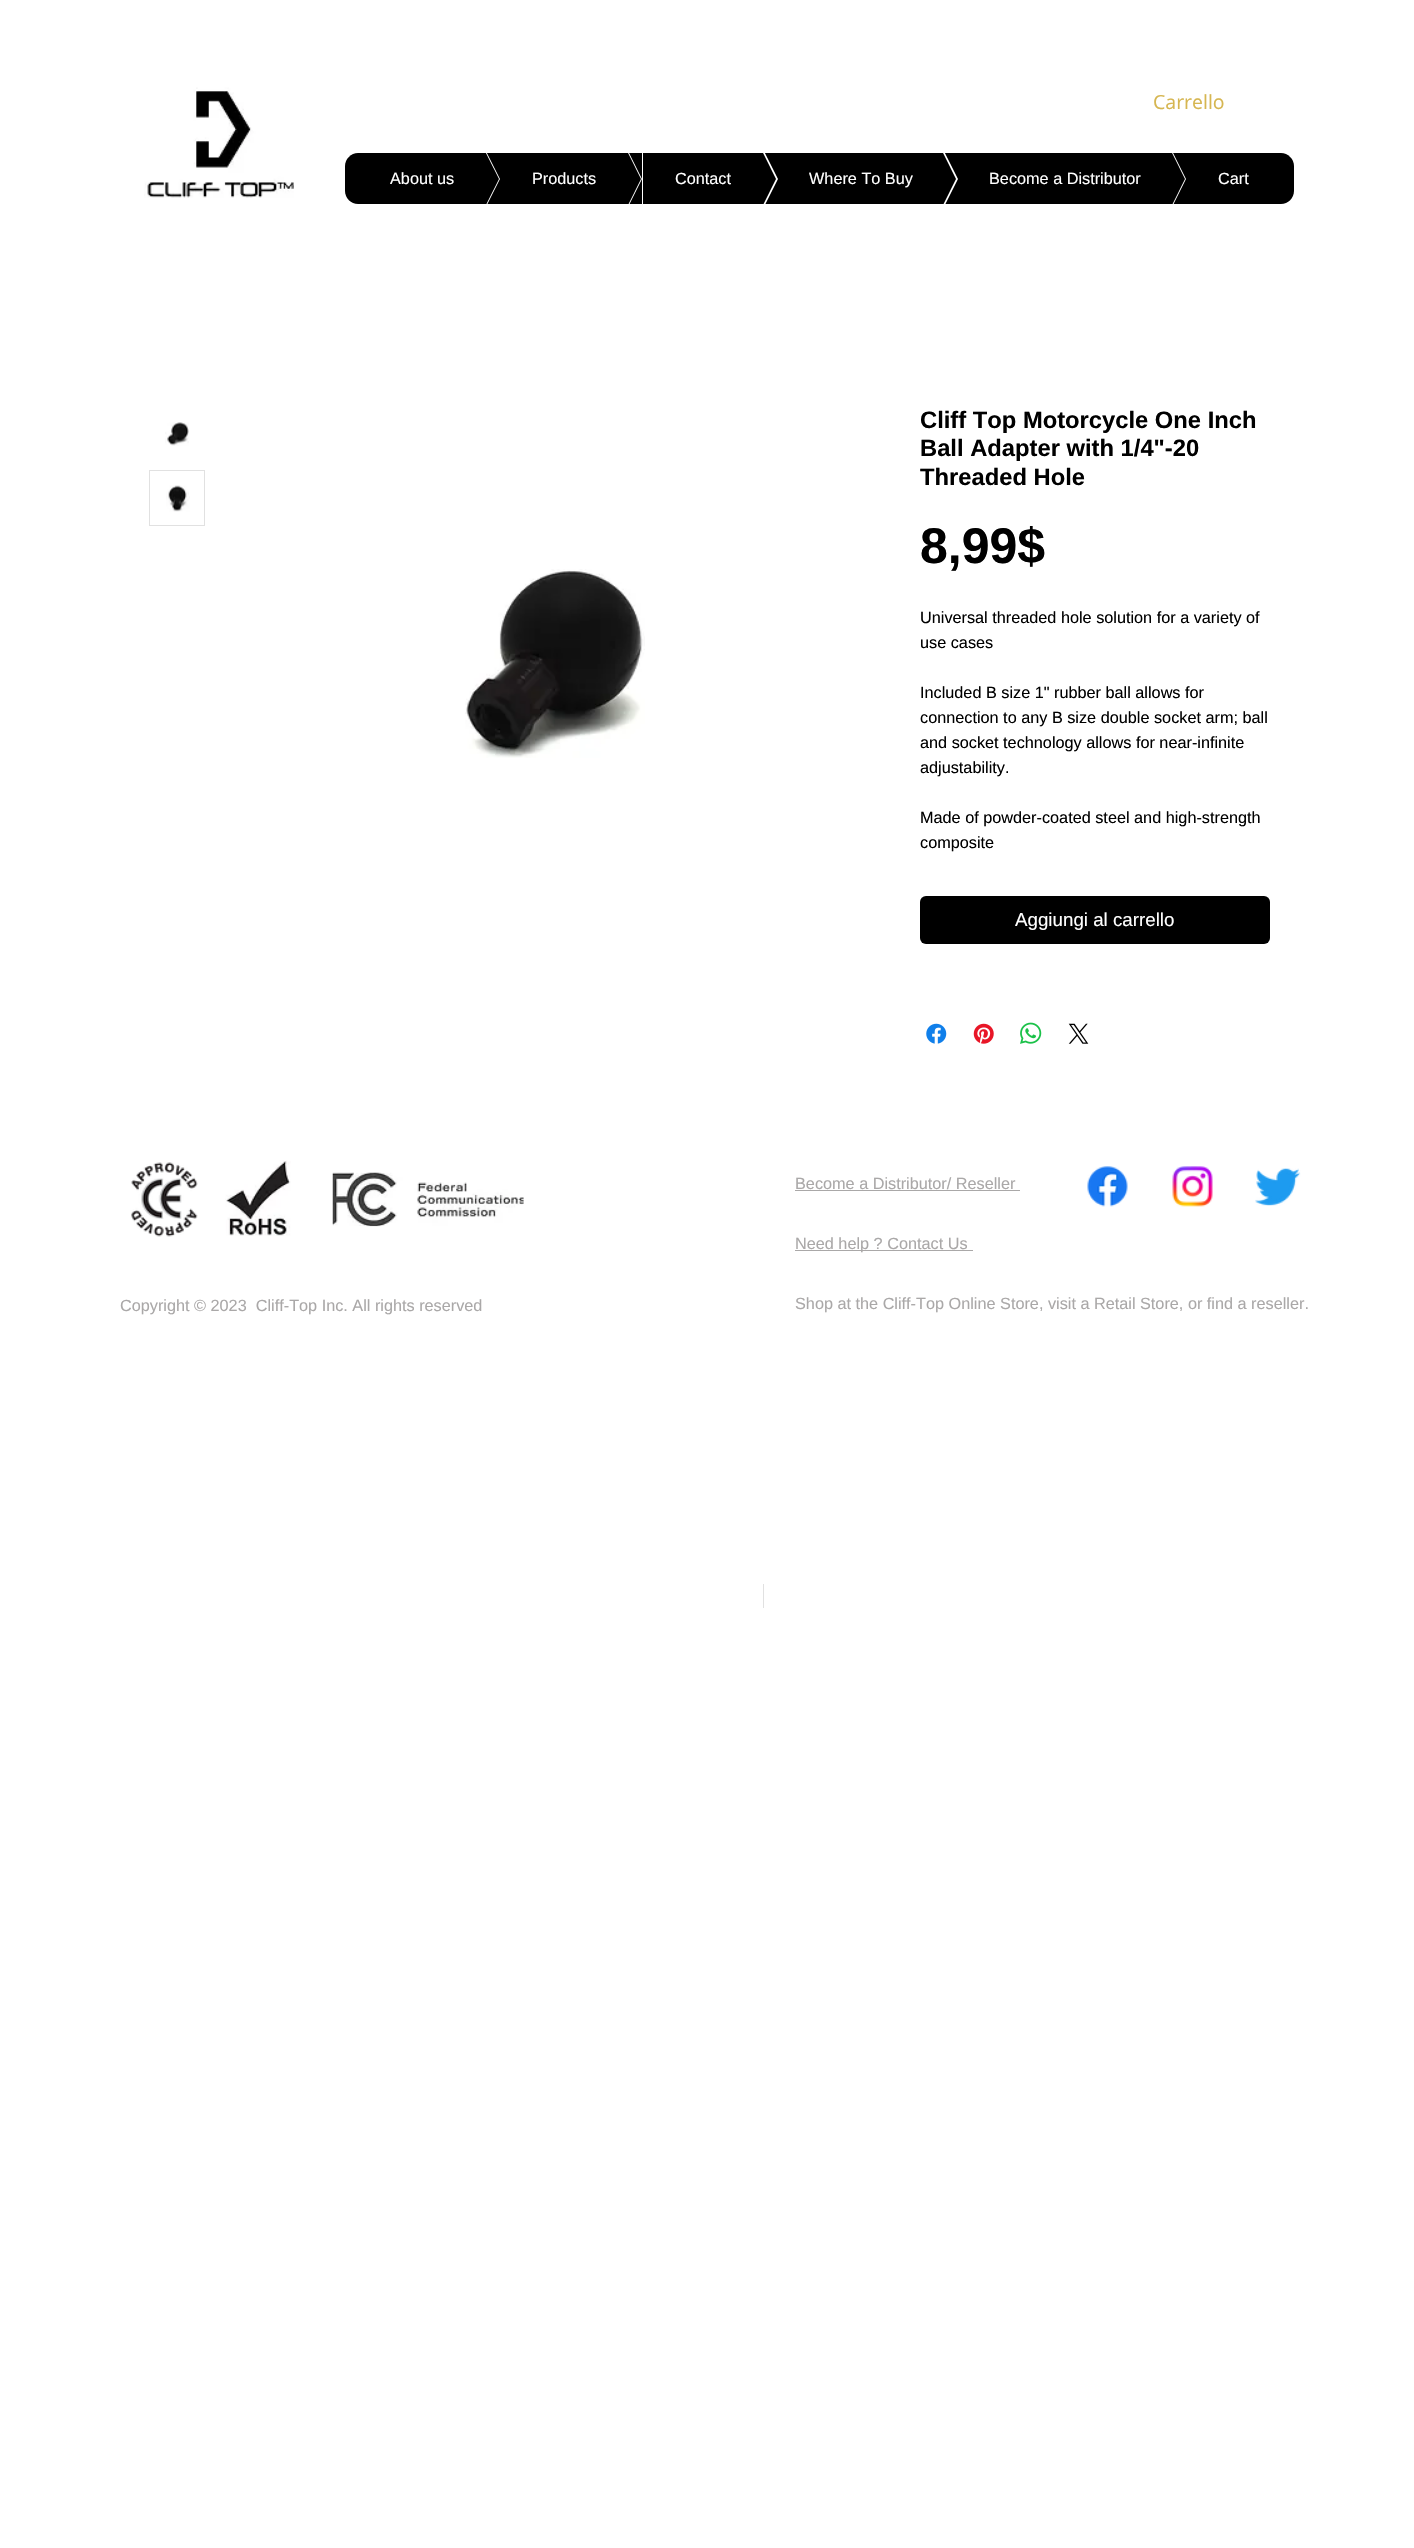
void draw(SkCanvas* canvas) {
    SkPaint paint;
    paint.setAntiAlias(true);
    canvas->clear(0xFFFFFFFF);
    canvas->drawImageRect(SkImages::DeferredFromEncodedData(SkData::MakeFromFileName("img1.png")), SkRect::MakeXYWH(144, 87, 150, 111), SkSamplingOptions());
    SkFont font1(fontMgr->matchFamilyStyle("Open Sans", SkFontStyle::Normal()), 19.5f);
    font1.setSubpixel(true);
    paint.setColor(0xFFD6B651);
    canvas->drawString("Carrello", 1153, 109, font1, paint);
    paint.setColor(0xFF000000);
    canvas->drawPath(SkPathBuilder().moveTo(358, 153).lineTo(411, 153).lineTo(411, 204).lineTo(358, 204).cubicTo(351, 204, 345, 198, 345, 191).lineTo(345, 166).cubicTo(345, 159, 351, 153, 358, 153).close().detach(), paint);
    canvas->save();
    canvas->clipRect(SkRect::MakeXYWH(411, 153, 88, 51));
    canvas->drawPath(SkPathBuilder().moveTo(499, 179).lineTo(411, 179).lineTo(411, 4).close().detach(), paint);
    canvas->drawPath(SkPathBuilder().moveTo(411, 179).lineTo(499, 179).lineTo(411, 354).close().detach(), paint);
    canvas->restore();
    SkFont font2(fontMgr->matchFamilyStyle("Liberation Sans", SkFontStyle::Normal()), 16.25f);
    font2.setSubpixel(true);
    paint.setColor(0xFFFFFFFF);
    canvas->drawString("About us", 390, 184, font2, paint);
    canvas->save();
    canvas->clipRect(SkRect::MakeXYWH(413, 153, 87, 51));
    paint.setColor(0xFF000000);
    canvas->drawPath(SkPathBuilder().moveTo(412, 4).lineTo(500, 4).lineTo(500, 179).close().moveTo(500, 354).lineTo(412, 354).lineTo(500, 179).close().detach(), paint);
    canvas->restore();
    canvas->drawRect(SkRect::MakeXYWH(500, 153, 54, 51), paint);
    canvas->save();
    canvas->clipRect(SkRect::MakeXYWH(554, 153, 87, 51));
    canvas->drawPath(SkPathBuilder().moveTo(641, 179).lineTo(554, 179).lineTo(554, 4).close().detach(), paint);
    canvas->drawPath(SkPathBuilder().moveTo(554, 179).lineTo(641, 179).lineTo(554, 354).close().detach(), paint);
    canvas->restore();
    paint.setColor(0xFFFFFFFF);
    canvas->drawString("Products", 532, 184, font2, paint);
    canvas->save();
    canvas->clipRect(SkRect::MakeXYWH(555, 153, 88, 51));
    paint.setColor(0xFF000000);
    canvas->drawPath(SkPathBuilder().moveTo(555, 4).lineTo(642, 4).lineTo(642, 179).close().moveTo(642, 354).lineTo(555, 354).lineTo(642, 179).close().detach(), paint);
    canvas->restore();
    canvas->drawRect(SkRect::MakeXYWH(643, 153, 46, 51), paint);
    canvas->save();
    canvas->clipRect(SkRect::MakeXYWH(689, 153, 87, 51));
    canvas->drawPath(SkPathBuilder().moveTo(776, 179).lineTo(689, 179).lineTo(689, 4).close().detach(), paint);
    canvas->drawPath(SkPathBuilder().moveTo(689, 179).lineTo(776, 179).lineTo(689, 354).close().detach(), paint);
    canvas->restore();
    paint.setColor(0xFFFFFFFF);
    canvas->drawString("Contact", 675, 184, font2, paint);
    canvas->save();
    canvas->clipRect(SkRect::MakeXYWH(690, 153, 88, 51));
    paint.setColor(0xFF000000);
    canvas->drawPath(SkPathBuilder().moveTo(690, 4).lineTo(778, 4).lineTo(778, 179).close().moveTo(778, 354).lineTo(690, 354).lineTo(778, 179).close().detach(), paint);
    canvas->restore();
    canvas->drawRect(SkRect::MakeXYWH(778, 153, 91, 51), paint);
    canvas->save();
    canvas->clipRect(SkRect::MakeXYWH(869, 153, 87, 51));
    canvas->drawPath(SkPathBuilder().moveTo(956, 179).lineTo(869, 179).lineTo(869, 4).close().detach(), paint);
    canvas->drawPath(SkPathBuilder().moveTo(869, 179).lineTo(956, 179).lineTo(869, 354).close().detach(), paint);
    canvas->restore();
    paint.setColor(0xFFFFFFFF);
    canvas->drawString("Where To Buy", 809, 184, font2, paint);
    canvas->save();
    canvas->clipRect(SkRect::MakeXYWH(870, 153, 88, 51));
    paint.setColor(0xFF000000);
    canvas->drawPath(SkPathBuilder().moveTo(870, 4).lineTo(958, 4).lineTo(958, 179).close().moveTo(958, 354).lineTo(870, 354).lineTo(958, 179).close().detach(), paint);
    canvas->restore();
    canvas->drawRect(SkRect::MakeXYWH(958, 153, 140, 51), paint);
    canvas->save();
    canvas->clipRect(SkRect::MakeXYWH(1098, 153, 87, 51));
    canvas->drawPath(SkPathBuilder().moveTo(1185, 179).lineTo(1098, 179).lineTo(1098, 4).close().detach(), paint);
    canvas->drawPath(SkPathBuilder().moveTo(1098, 179).lineTo(1185, 179).lineTo(1098, 354).close().detach(), paint);
    canvas->restore();
    paint.setColor(0xFFFFFFFF);
    canvas->drawString("Become a Distributor", 989, 184, font2, paint);
    canvas->save();
    canvas->clipRect(SkRect::MakeXYWH(1099, 153, 87, 51));
    paint.setColor(0xFF000000);
    canvas->drawPath(SkPathBuilder().moveTo(1099, 4).lineTo(1186, 4).lineTo(1186, 179).close().moveTo(1186, 354).lineTo(1099, 354).lineTo(1186, 179).close().detach(), paint);
    canvas->restore();
    canvas->drawRect(SkRect::MakeXYWH(1186, 153, 20, 51), paint);
    canvas->drawPath(SkPathBuilder().moveTo(1206, 153).lineTo(1281, 153).cubicTo(1288, 153, 1294, 159, 1294, 166).lineTo(1294, 191).cubicTo(1294, 198, 1288, 204, 1281, 204).lineTo(1206, 204).close().detach(), paint);
    paint.setColor(0xFFFFFFFF);
    canvas->drawString("Cart", 1218, 184, font2, paint);
    canvas->drawImageRect(SkImages::DeferredFromEncodedData(SkData::MakeFromFileName("img2.png")), SkRect::MakeXYWH(165, 422, 24, 24), SkSamplingOptions());
    paint.setStyle(SkPaint::kStroke_Style);
    paint.setStrokeWidth(1);
    paint.setColor(0xFFE1E1E1);
    canvas->drawRect(SkRect::MakeXYWH(149.5f, 470.5f, 55, 55), paint);
    canvas->drawImageRect(SkImages::DeferredFromEncodedData(SkData::MakeFromFileName("img3.png")), SkRect::MakeXYWH(166, 485, 24, 27), SkSamplingOptions());
    canvas->drawImageRect(SkImages::DeferredFromEncodedData(SkData::MakeFromFileName("img4.png")), SkRect::MakeXYWH(465, 569, 180, 189), SkSamplingOptions());
    SkFont font3(fontMgr->matchFamilyStyle("Liberation Sans", SkFontStyle::Bold()), 23.75f);
    font3.setSubpixel(true);
    paint.setStyle(SkPaint::kFill_Style);
    paint.setColor(0xFF000000);
    canvas->drawString("Cliff Top Motorcycle One Inch", 920, 428, font3, paint);
    canvas->drawString("Ball Adapter with 1/4\"-20", 920, 456, font3, paint);
    canvas->drawString("Threaded Hole", 920, 485, font3, paint);
    SkFont font4(fontMgr->matchFamilyStyle("Liberation Sans", SkFontStyle::Bold()), 50);
    font4.setSubpixel(true);
    canvas->drawString("8,99$", 920, 563, font4, paint);
    canvas->drawString("Universal threaded hole solution for a variety of", 920, 623, font2, paint);
    canvas->drawString("use cases", 920, 648, font2, paint);
    canvas->drawString("Included B size 1\" rubber ball allows for", 920, 698, font2, paint);
    canvas->drawString("connection to any B size double socket arm; ball", 920, 723, font2, paint);
    canvas->drawString("and socket technology allows for near-infinite", 920, 748, font2, paint);
    canvas->drawString("adjustability.", 920, 773, font2, paint);
    canvas->drawString("Made of powder-coated steel and high-strength", 920, 823, font2, paint);
    canvas->drawString("composite", 920, 848, font2, paint);
    canvas->drawRoundRect(SkRect::MakeXYWH(920, 896, 350, 48), 6, 6, paint);
    SkFont font5(fontMgr->matchFamilyStyle("Liberation Sans", SkFontStyle::Normal()), 18.75f);
    font5.setSubpixel(true);
    paint.setColor(0xFFFFFFFF);
    canvas->drawString("Aggiungi al carrello", 1015, 926, font5, paint);
    canvas->drawImageRect(SkImages::DeferredFromEncodedData(SkData::MakeFromFileName("img5.png")), SkRect::MakeXYWH(926, 1023, 21, 21), SkSamplingOptions());
    canvas->drawImageRect(SkImages::DeferredFromEncodedData(SkData::MakeFromFileName("img6.png")), SkRect::MakeXYWH(973, 1023, 21, 21), SkSamplingOptions());
    canvas->drawImageRect(SkImages::DeferredFromEncodedData(SkData::MakeFromFileName("img7.png")), SkRect::MakeXYWH(1020, 1022, 22, 22), SkSamplingOptions());
    canvas->drawImageRect(SkImages::DeferredFromEncodedData(SkData::MakeFromFileName("img8.png")), SkRect::MakeXYWH(1068, 1023, 21, 21), SkSamplingOptions());
    canvas->drawImageRect(SkImages::DeferredFromEncodedData(SkData::MakeFromFileName("img9.png")), SkRect::MakeXYWH(131, 1162, 67, 75), SkSamplingOptions());
    canvas->drawImageRect(SkImages::DeferredFromEncodedData(SkData::MakeFromFileName("img10.png")), SkRect::MakeXYWH(225, 1160, 66, 76), SkSamplingOptions());
    canvas->drawImageRect(SkImages::DeferredFromEncodedData(SkData::MakeFromFileName("img11.png")), SkRect::MakeXYWH(332, 1172, 192, 55), SkSamplingOptions());
    paint.setColor(0xFFAAA8A8);
    canvas->drawString("Become a Distributor/ Reseller", 795, 1189, font2, paint);
    canvas->drawRect(SkRect::MakeXYWH(795, 1190, 225, 1), paint);
    canvas->drawImageRect(SkImages::DeferredFromEncodedData(SkData::MakeFromFileName("img12.png")), SkRect::MakeXYWH(1087, 1166, 41, 41), SkSamplingOptions());
    canvas->drawImageRect(SkImages::DeferredFromEncodedData(SkData::MakeFromFileName("img13.png")), SkRect::MakeXYWH(1172, 1166, 41, 41), SkSamplingOptions());
    canvas->drawImageRect(SkImages::DeferredFromEncodedData(SkData::MakeFromFileName("img14.png")), SkRect::MakeXYWH(1255, 1168, 46, 38), SkSamplingOptions());
    canvas->drawRect(SkRect::MakeXYWH(795, 1250, 178, 1), paint);
    canvas->drawString("Need help ? Contact Us", 795, 1249, font2, paint);
    canvas->drawString("Copyright © 2023  Cliff-Top Inc. All rights reserved", 120, 1311, font2, paint);
    canvas->drawString("Shop at the Cliff-Top Online Store, visit a Retail Store, or find a reseller.", 795, 1309, font2, paint);
    paint.setColor(0xFFE1E1E1);
    canvas->drawRect(SkRect::MakeXYWH(763, 1584, 1, 24), paint);
}
